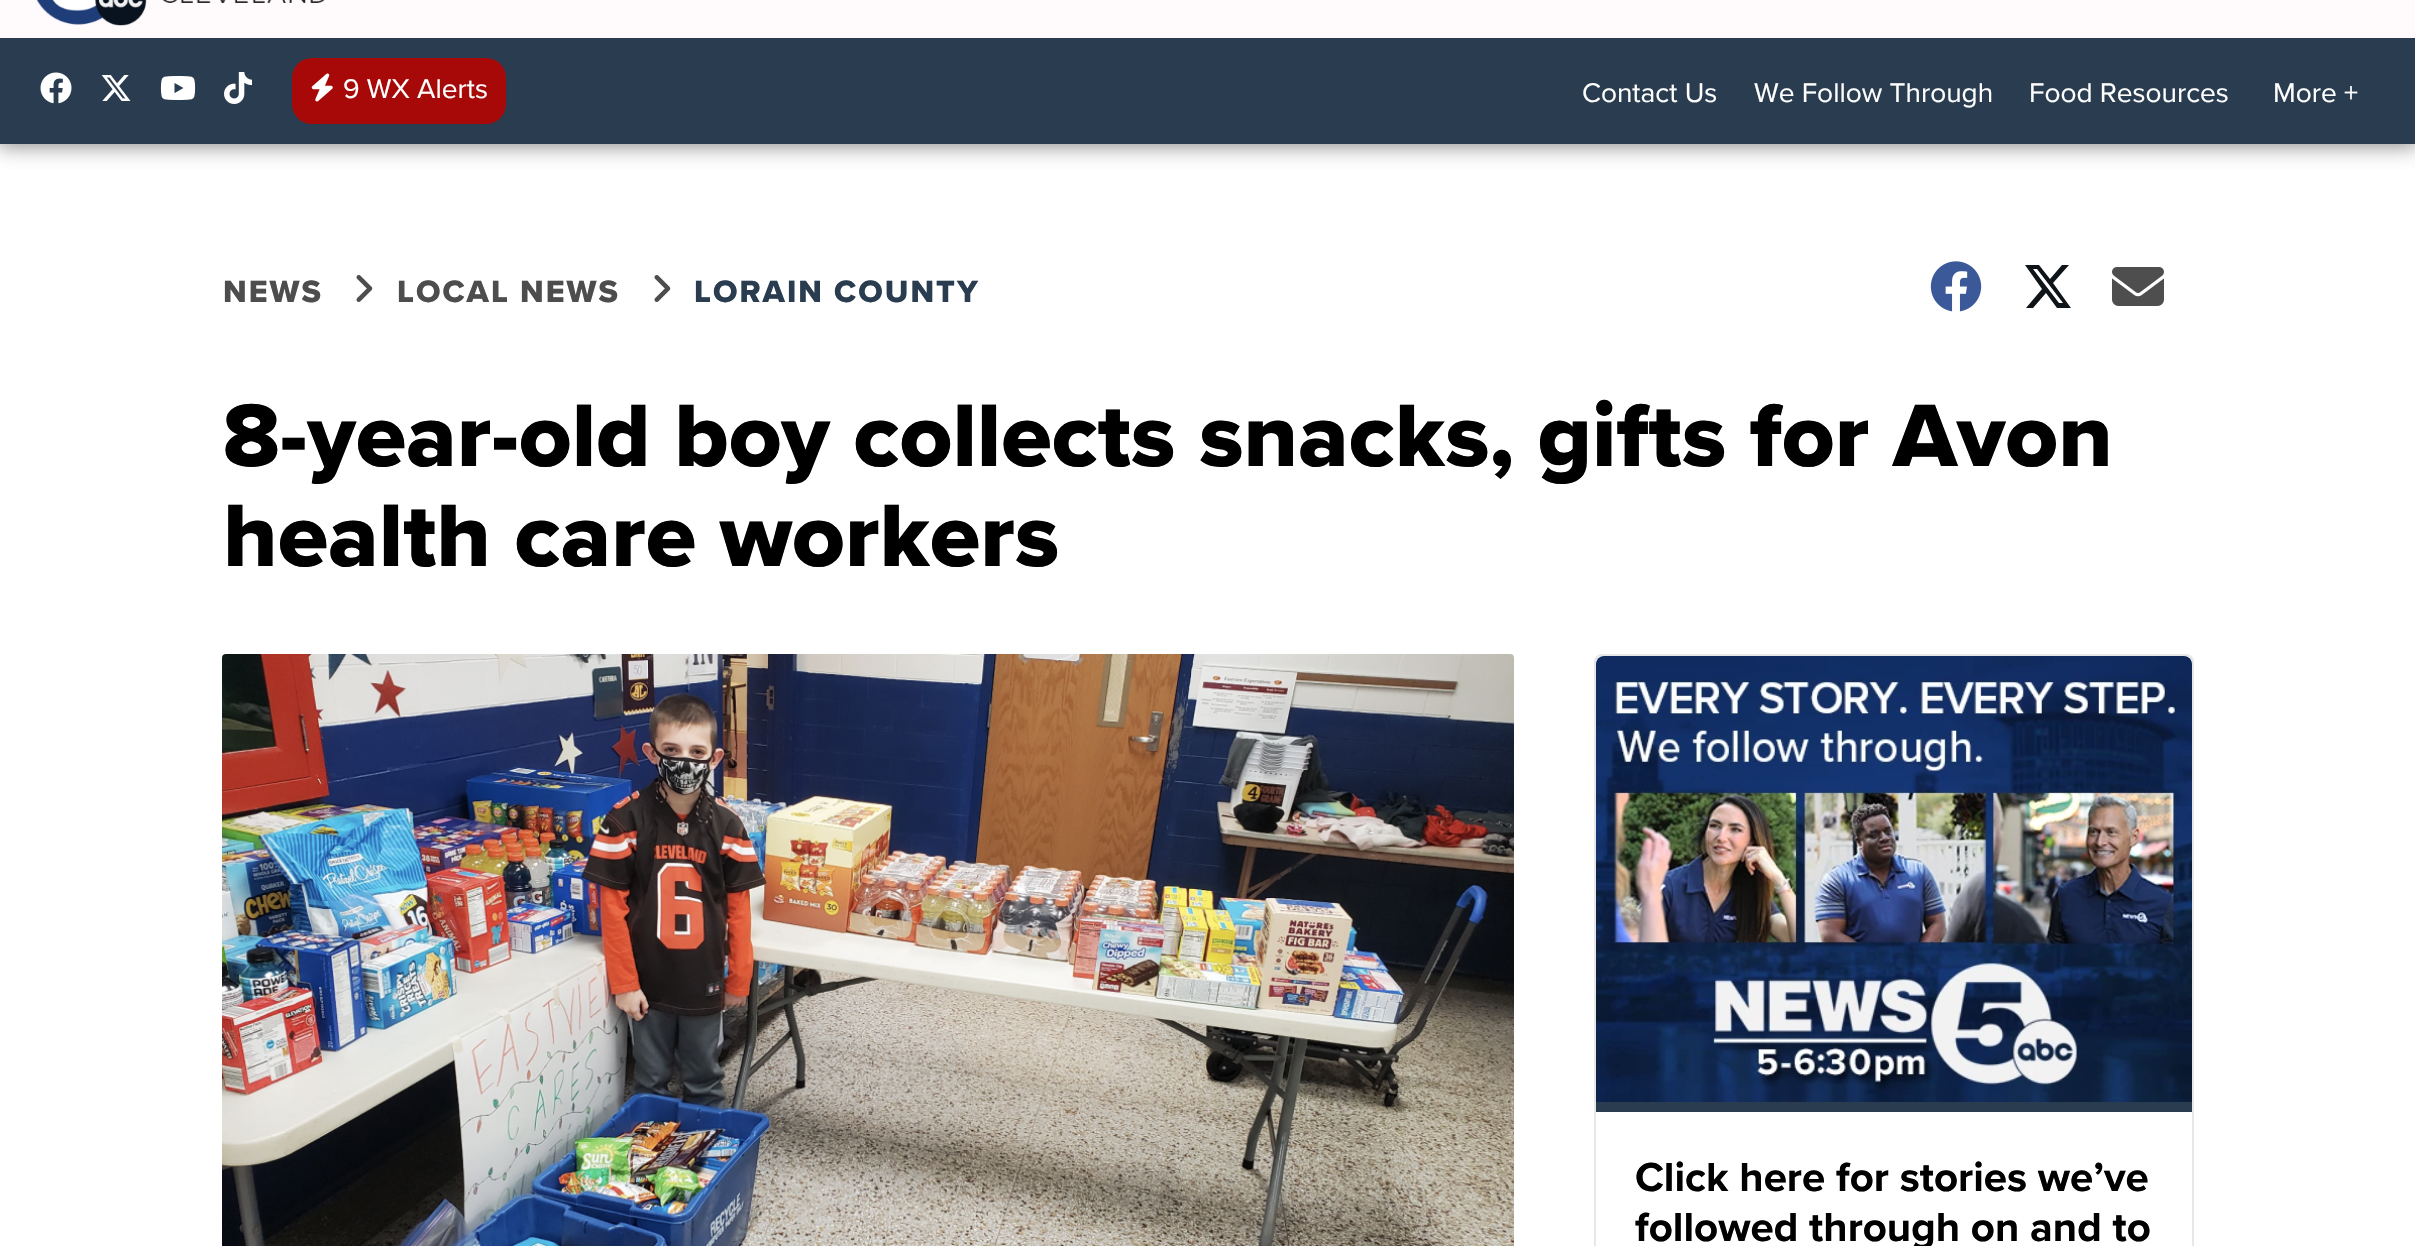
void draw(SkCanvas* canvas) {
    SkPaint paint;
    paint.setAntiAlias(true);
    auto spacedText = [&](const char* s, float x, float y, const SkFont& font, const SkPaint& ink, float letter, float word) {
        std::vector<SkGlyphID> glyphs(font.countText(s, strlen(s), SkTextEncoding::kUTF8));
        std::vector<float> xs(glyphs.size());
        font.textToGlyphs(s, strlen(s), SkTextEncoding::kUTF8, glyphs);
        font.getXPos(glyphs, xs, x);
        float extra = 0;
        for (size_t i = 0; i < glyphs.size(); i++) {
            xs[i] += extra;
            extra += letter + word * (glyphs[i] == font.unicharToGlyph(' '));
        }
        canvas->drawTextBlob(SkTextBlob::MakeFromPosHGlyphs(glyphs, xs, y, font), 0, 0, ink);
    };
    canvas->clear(0xFFFFFFFF);
    paint.setColor(0xC2616161);
    paint.setMaskFilter(SkMaskFilter::MakeBlur(kNormal_SkBlurStyle, 10));
    canvas->drawRect(SkRect::MakeXYWH(-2, -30, 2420, 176), paint);
    paint.setMaskFilter(nullptr);
    paint.setColor(0xFFFFFBFD);
    canvas->drawRect(SkRect::MakeXYWH(0, 0, 2415, 38), paint);
    canvas->drawImageRect(SkImages::DeferredFromEncodedData(SkData::MakeFromFileName("img1.png")), SkRect::MakeXYWH(36, 0, 289, 26), SkSamplingOptions());
    paint.setColor(0xFF2A3C4F);
    canvas->drawRect(SkRect::MakeXYWH(0, 38, 2415, 106), paint);
    canvas->drawImageRect(SkImages::DeferredFromEncodedData(SkData::MakeFromFileName("img2.png")), SkRect::MakeXYWH(40, 72, 32, 32), SkSamplingOptions());
    canvas->drawImageRect(SkImages::DeferredFromEncodedData(SkData::MakeFromFileName("img3.png")), SkRect::MakeXYWH(101, 75, 30, 26), SkSamplingOptions());
    canvas->drawImageRect(SkImages::DeferredFromEncodedData(SkData::MakeFromFileName("img4.png")), SkRect::MakeXYWH(160, 76, 36, 24), SkSamplingOptions());
    canvas->drawImageRect(SkImages::DeferredFromEncodedData(SkData::MakeFromFileName("img5.png")), SkRect::MakeXYWH(224, 72, 28, 32), SkSamplingOptions());
    paint.setColor(0xFFA70808);
    canvas->drawRoundRect(SkRect::MakeXYWH(292, 58, 214, 66), 20, 20, paint);
    canvas->drawImageRect(SkImages::DeferredFromEncodedData(SkData::MakeFromFileName("img6.png")), SkRect::MakeXYWH(311, 73, 22, 29), SkSamplingOptions());
    SkFont font1(fontMgr->matchFamilyStyle("Proxima Nova", SkFontStyle::Normal()), 28);
    font1.setSubpixel(true);
    paint.setColor(0xFFFFFFFF);
    canvas->drawString("9 WX Alerts", 343, 98, font1, paint);
    canvas->drawString("Contact Us", 1582, 102, font1, paint);
    canvas->drawString("We Follow Through", 1754, 102, font1, paint);
    canvas->drawString("Food Resources", 2029, 102, font1, paint);
    canvas->drawString("More +", 2273, 102, font1, paint);
    SkFont font2(fontMgr->matchFamilyStyle("Proxima Nova", SkFontStyle(800, SkFontStyle::kNormal_Width, SkFontStyle::kUpright_Slant)), 32);
    font2.setSubpixel(true);
    paint.setColor(0xFF4D4D4D);
    spacedText("NEWS", 223, 302, font2, paint, 2, 0);
    canvas->drawImageRect(SkImages::DeferredFromEncodedData(SkData::MakeFromFileName("img7.png")), SkRect::MakeXYWH(356, 275, 17, 27), SkSamplingOptions());
    spacedText("LOCAL NEWS", 397, 302, font2, paint, 2, 0);
    canvas->drawImageRect(SkImages::DeferredFromEncodedData(SkData::MakeFromFileName("img7.png")), SkRect::MakeXYWH(654, 275, 17, 27), SkSamplingOptions());
    paint.setColor(0xFF2A3C4F);
    spacedText("LORAIN COUNTY", 694, 302, font2, paint, 2, 0);
    canvas->drawImageRect(SkImages::DeferredFromEncodedData(SkData::MakeFromFileName("img8.png")), SkRect::MakeXYWH(1930, 261, 52, 51), SkSamplingOptions());
    paint.setColor(0xFF0F1419);
    canvas->drawPath(SkPathBuilder().moveTo(2062, 265).lineTo(2069, 265).lineTo(2053, 283).lineTo(2071, 308).lineTo(2057, 308).lineTo(2046, 293).lineTo(2033, 308).lineTo(2026, 308).lineTo(2042, 289).lineTo(2025, 265).lineTo(2039, 265).lineTo(2050, 279).close().moveTo(2059, 303).lineTo(2063, 303).lineTo(2037, 269).lineTo(2033, 269).close().detach(), paint);
    canvas->drawImageRect(SkImages::DeferredFromEncodedData(SkData::MakeFromFileName("img9.png")), SkRect::MakeXYWH(2112, 267, 52, 39), SkSamplingOptions());
    SkFont font3(fontMgr->matchFamilyStyle("Proxima Nova", SkFontStyle(800, SkFontStyle::kNormal_Width, SkFontStyle::kUpright_Slant)), 92);
    font3.setSubpixel(true);
    paint.setColor(0xFF000000);
    canvas->drawString("8-year-old boy collects snacks, gifts for Avon", 223, 466, font3, paint);
    canvas->drawString("health care workers", 223, 566, font3, paint);
    canvas->drawImageRect(SkImages::DeferredFromEncodedData(SkData::MakeFromFileName("img10.png")), SkRect::MakeXYWH(222, 654, 1292, 592), SkSamplingOptions());
    paint.setStyle(SkPaint::kStroke_Style);
    paint.setStrokeWidth(2);
    paint.setColor(0xFFE7E7E7);
    canvas->drawRoundRect(SkRect::MakeXYWH(1595, 655, 598, 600), 7, 7, paint);
    canvas->drawImageRect(SkImages::DeferredFromEncodedData(SkData::MakeFromFileName("img11.png")), SkRect::MakeXYWH(1596, 656, 596, 446), SkSamplingOptions());
    paint.setStyle(SkPaint::kFill_Style);
    paint.setColor(0xFF2A3C4F);
    canvas->drawRect(SkRect::MakeXYWH(1596, 1102, 596, 10), paint);
    SkFont font4(fontMgr->matchFamilyStyle("Proxima Nova", SkFontStyle::Bold()), 42);
    font4.setSubpixel(true);
    paint.setColor(0xFF000000);
    canvas->drawString("Click here for stories we’ve", 1635, 1191, font4, paint);
    canvas->drawString("followed through on and to", 1635, 1241, font4, paint);
}
